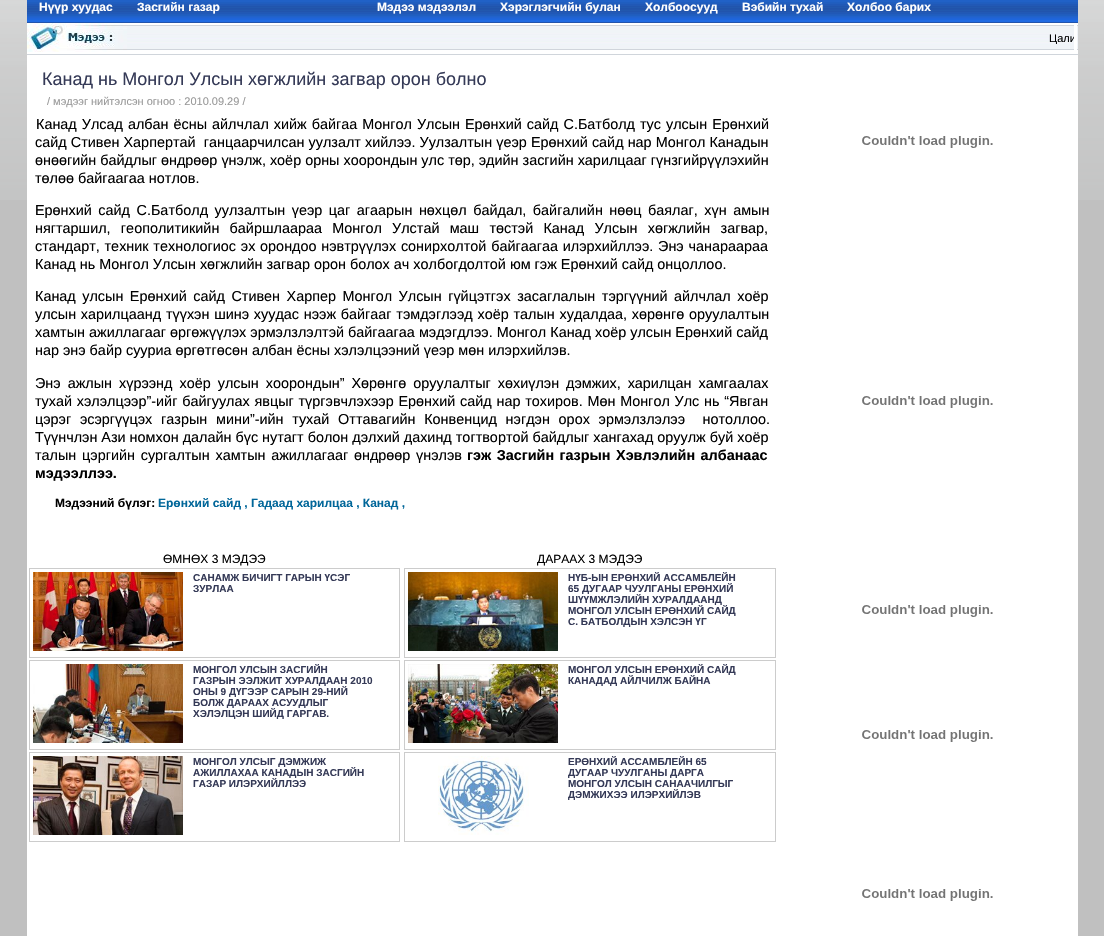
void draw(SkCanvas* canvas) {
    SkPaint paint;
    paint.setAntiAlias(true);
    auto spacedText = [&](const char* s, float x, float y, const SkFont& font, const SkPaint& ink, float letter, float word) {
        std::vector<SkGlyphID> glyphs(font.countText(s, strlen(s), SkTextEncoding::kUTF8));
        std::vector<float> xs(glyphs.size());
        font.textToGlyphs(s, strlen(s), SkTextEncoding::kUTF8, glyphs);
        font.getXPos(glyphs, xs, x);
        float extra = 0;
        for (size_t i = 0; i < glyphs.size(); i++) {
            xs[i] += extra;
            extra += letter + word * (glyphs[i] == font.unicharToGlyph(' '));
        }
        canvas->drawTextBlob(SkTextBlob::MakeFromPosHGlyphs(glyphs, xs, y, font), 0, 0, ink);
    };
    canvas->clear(0xFFC0C0C0);
    canvas->drawImageRect(SkImages::DeferredFromEncodedData(SkData::MakeFromFileName("img1.png")), SkRect::MakeXYWH(0, 0, 1104, 200), SkSamplingOptions());
    paint.setColor(0xFFFFFFFF);
    canvas->drawRect(SkRect::MakeXYWH(27, 23, 1051, 913), paint);
    canvas->drawImageRect(SkImages::DeferredFromEncodedData(SkData::MakeFromFileName("img2.png")), SkRect::MakeXYWH(27, 0, 1051, 23), SkSamplingOptions());
    SkFont font1(fontMgr->matchFamilyStyle("Liberation Sans", SkFontStyle::Bold()), 12);
    font1.setSubpixel(true);
    canvas->drawString("Нүүр xуудас", 39, 11, font1, paint);
    canvas->drawString("Засгийн газар", 137, 11, font1, paint);
    canvas->drawString("Мэдээ мэдээлэл", 377, 11, font1, paint);
    canvas->drawString("Хэрэглэгчийн булан", 500, 11, font1, paint);
    canvas->drawString("Холбоосууд", 645, 11, font1, paint);
    canvas->drawString("Вэбийн тухай", 742, 11, font1, paint);
    canvas->drawString("Холбоо барих", 847, 11, font1, paint);
    canvas->drawImageRect(SkImages::DeferredFromEncodedData(SkData::MakeFromFileName("img3.png")), SkRect::MakeXYWH(27, 25, 1051, 30), SkSamplingOptions());
    canvas->drawImageRect(SkImages::DeferredFromEncodedData(SkData::MakeFromFileName("img4.png")), SkRect::MakeXYWH(27, 23, 100, 29), SkSamplingOptions());
    canvas->save();
    canvas->clipRect(SkRect::MakeXYWH(127, 32, 947, 12));
    SkFont font2(fontMgr->matchFamilyStyle("Liberation Sans", SkFontStyle::Normal()), 11);
    font2.setSubpixel(true);
    paint.setColor(0xFF000000);
    canvas->drawString("Цали", 1049, 42, font2, paint);
    canvas->restore();
    paint.setColor(0xFFFFFFFF);
    canvas->drawRect(SkRect::MakeXYWH(1074, 25, 3, 25), paint);
    SkFont font3(fontMgr->matchFamilyStyle("Liberation Sans", SkFontStyle::Normal()), 18);
    font3.setSubpixel(true);
    paint.setColor(0xFF353A57);
    canvas->drawString("Канад нь Монгол Улсын хөгжлийн загвар орон болно", 42, 85, font3, paint);
    paint.setColor(0xFF999999);
    canvas->drawString("/ мэдээг нийтэлсэн огноо : 2010.09.29 /", 47, 105, font2, paint);
    SkFont font4(fontMgr->matchFamilyStyle("Liberation Sans", SkFontStyle::Normal()), 14.4f);
    font4.setSubpixel(true);
    paint.setColor(0xFF000000);
    spacedText("Канад Улсад албан ёсны айлчлал хийж байгаа Монгол Улсын Ерөнхий сайд С.Батболд тус улсын Ерөнхий", 36, 129, font4, paint, 0, 1);
    spacedText("сайд Стивен Харпертай  ганцаарчилсан уулзалт хийлээ. Уулзалтын үеэр Ерөнхий сайд нар Монгол Канадын", 35, 147, font4, paint, 0, 0.1f);
    canvas->drawString("өнөөгийн байдлыг өндрөөр үнэлж, хоёр орны хоорондын улс төр, эдийн засгийн харилцааг гүнзгийрүүлэхийн", 35, 165, font4, paint);
    canvas->drawString("төлөө байгаагаа нотлов.", 35, 183, font4, paint);
    spacedText("Ерөнхий сайд С.Батболд уулзалтын үеэр цаг агаарын нөхцөл байдал, байгалийн нөөц баялаг, хүн амын", 35, 215, font4, paint, 0, 2.5f);
    spacedText("нягтаршил, геополитикийн байршлаараа Монгол Улстай маш төстэй Канад Улсын хөгжлийн загвар,", 35, 233, font4, paint, 0, 6.25f);
    spacedText("стандарт, техник технологиос эх орондоо нэвтрүүлэх сонирхолтой байгаагаа илэрхийллээ. Энэ чанараараа", 35, 251, font4, paint, 0, 0.75f);
    canvas->drawString("Канад нь Монгол Улсын хөгжлийн загвар орон болох ач холбогдолтой юм гэж Ерөнхий сайд онцоллоо.", 35, 269, font4, paint);
    spacedText("Канад улсын Ерөнхий сайд Стивен Харпер Монгол Улсын гүйцэтгэх засаглалын тэргүүний айлчлал хоёр", 35, 301, font4, paint, 0, 2.5f);
    spacedText("улсын харилцаанд түүхэн шинэ хуудас нээж байгааг тэмдэглээд хоёр талын худалдаа, хөрөнгө оруулалтын", 35, 319, font4, paint, 0, 0.75f);
    canvas->drawString("хамтын ажиллагааг өргөжүүлэх эрмэлзлэлтэй байгаагаа мэдэгдлээ. Монгол Канад хоёр улсын Ерөнхий сайд", 35, 337, font4, paint);
    canvas->drawString("нар энэ байр сууриа өргөтгөсөн албан ёсны хэлэлцээний үеэр мөн илэрхийлэв.", 35, 355, font4, paint);
    spacedText("Энэ ажлын хүрээнд хоёр улсын хоорондын” Хөрөнгө оруулалтыг хөхиүлэн дэмжих, харилцан хамгаалах", 35, 388, font4, paint, 0, 3);
    spacedText("тухай хэлэлцээр”-ийг байгуулах явцыг түргэвчлэхээр Ерөнхий сайд нар тохиров. Мөн Монгол Улс нь “Явган", 35, 406, font4, paint, 0, 0.75f);
    spacedText("цэрэг эсэргүүцэх газрын мини”-ийн тухай Оттавагийн Конвенцид нэгдэн орох эрмэлзлэлээ  нотоллоо.", 35, 424, font4, paint, 0, 4.75f);
    canvas->drawString("Түүнчлэн Ази номхон далайн бүс нутагт болон дэлхий дахинд тогтвортой байдлыг хангахад оруулж буй хоёр", 35, 442, font4, paint);
    spacedText("талын цэргийн сургалтын хамтын ажиллагааг өндрөөр үнэлэв", 35, 460, font4, paint, 0, 1.75f);
    SkFont font5(fontMgr->matchFamilyStyle("Liberation Sans", SkFontStyle::Bold()), 14.4f);
    font5.setSubpixel(true);
    spacedText("гэж Засгийн газрын Хэвлэлийн албанаас", 467, 460, font5, paint, 0, 1.5f);
    canvas->drawString("мэдээллээ.", 35, 478, font5, paint);
    canvas->drawString("Мэдээний бүлэг:", 55, 507, font1, paint);
    paint.setColor(0xFF006699);
    canvas->drawString("Ерөнхий сайд , Гадаад харилцаа , Канад ,", 158, 507, font1, paint);
    SkFont font6(fontMgr->matchFamilyStyle("Liberation Sans", SkFontStyle::Normal()), 12);
    font6.setSubpixel(true);
    paint.setColor(0xFF000000);
    canvas->drawString("ӨМНӨХ 3 МЭДЭЭ", 163, 563, font6, paint);
    canvas->drawString("ДАРААХ 3 МЭДЭЭ", 537, 563, font6, paint);
    paint.setStyle(SkPaint::kStroke_Style);
    paint.setStrokeWidth(1);
    paint.setColor(0xFFCCCCCC);
    canvas->drawRect(SkRect::MakeXYWH(29.5f, 568.5f, 370, 89), paint);
    canvas->drawImageRect(SkImages::DeferredFromEncodedData(SkData::MakeFromFileName("img5.png")), SkRect::MakeXYWH(33, 572, 150, 79), SkSamplingOptions());
    SkFont font7(fontMgr->matchFamilyStyle("Liberation Sans", SkFontStyle::Bold()), 10);
    font7.setSubpixel(true);
    paint.setStyle(SkPaint::kFill_Style);
    paint.setColor(0xFF353A57);
    canvas->drawString("САНАМЖ БИЧИГТ ГАРЫН ҮСЭГ", 193, 581, font7, paint);
    canvas->drawString("ЗУРЛАА", 193, 592, font7, paint);
    paint.setStyle(SkPaint::kStroke_Style);
    paint.setColor(0xFFCCCCCC);
    canvas->drawRect(SkRect::MakeXYWH(29.5f, 660.5f, 370, 89), paint);
    canvas->drawImageRect(SkImages::DeferredFromEncodedData(SkData::MakeFromFileName("img6.png")), SkRect::MakeXYWH(33, 664, 150, 79), SkSamplingOptions());
    paint.setStyle(SkPaint::kFill_Style);
    paint.setColor(0xFF353A57);
    canvas->drawString("МОНГОЛ УЛСЫН ЗАСГИЙН", 193, 673, font7, paint);
    canvas->drawString("ГАЗРЫН ЭЭЛЖИТ ХУРАЛДААН 2010", 193, 684, font7, paint);
    canvas->drawString("ОНЫ 9 ДҮГЭЭР САРЫН 29-НИЙ", 193, 695, font7, paint);
    canvas->drawString("БОЛЖ ДАРААХ АСУУДЛЫГ", 193, 706, font7, paint);
    canvas->drawString("ХЭЛЭЛЦЭН ШИЙД ГАРГАВ.", 193, 717, font7, paint);
    paint.setStyle(SkPaint::kStroke_Style);
    paint.setColor(0xFFCCCCCC);
    canvas->drawRect(SkRect::MakeXYWH(29.5f, 752.5f, 370, 89), paint);
    canvas->drawImageRect(SkImages::DeferredFromEncodedData(SkData::MakeFromFileName("img7.png")), SkRect::MakeXYWH(33, 756, 150, 79), SkSamplingOptions());
    paint.setStyle(SkPaint::kFill_Style);
    paint.setColor(0xFF353A57);
    canvas->drawString("МОНГОЛ УЛСЫГ ДЭМЖИЖ", 193, 765, font7, paint);
    canvas->drawString("АЖИЛЛАХАА КАНАДЫН ЗАСГИЙН", 193, 776, font7, paint);
    canvas->drawString("ГАЗАР ИЛЭРХИЙЛЛЭЭ", 193, 787, font7, paint);
    paint.setStyle(SkPaint::kStroke_Style);
    paint.setColor(0xFFCCCCCC);
    canvas->drawRect(SkRect::MakeXYWH(404.5f, 568.5f, 371, 89), paint);
    canvas->drawImageRect(SkImages::DeferredFromEncodedData(SkData::MakeFromFileName("img8.png")), SkRect::MakeXYWH(408, 572, 150, 79), SkSamplingOptions());
    paint.setStyle(SkPaint::kFill_Style);
    paint.setColor(0xFF353A57);
    canvas->drawString("НҮБ-ЫН ЕРӨНХИЙ АССАМБЛЕЙН", 568, 581, font7, paint);
    canvas->drawString("65 ДУГААР ЧУУЛГАНЫ ЕРӨНХИЙ", 568, 592, font7, paint);
    canvas->drawString("ШҮҮМЖЛЭЛИЙН ХУРАЛДААНД", 568, 603, font7, paint);
    canvas->drawString("МОНГОЛ УЛСЫН ЕРӨНХИЙ САЙД", 568, 614, font7, paint);
    canvas->drawString("С. БАТБОЛДЫН ХЭЛСЭН ҮГ", 568, 625, font7, paint);
    paint.setStyle(SkPaint::kStroke_Style);
    paint.setColor(0xFFCCCCCC);
    canvas->drawRect(SkRect::MakeXYWH(404.5f, 660.5f, 371, 89), paint);
    canvas->drawImageRect(SkImages::DeferredFromEncodedData(SkData::MakeFromFileName("img9.png")), SkRect::MakeXYWH(408, 664, 150, 79), SkSamplingOptions());
    paint.setStyle(SkPaint::kFill_Style);
    paint.setColor(0xFF353A57);
    canvas->drawString("МОНГОЛ УЛСЫН ЕРӨНХИЙ САЙД", 568, 673, font7, paint);
    canvas->drawString("КАНАДАД АЙЛЧИЛЖ БАЙНА", 568, 684, font7, paint);
    paint.setStyle(SkPaint::kStroke_Style);
    paint.setColor(0xFFCCCCCC);
    canvas->drawRect(SkRect::MakeXYWH(404.5f, 752.5f, 371, 89), paint);
    canvas->drawImageRect(SkImages::DeferredFromEncodedData(SkData::MakeFromFileName("img10.png")), SkRect::MakeXYWH(438, 756, 91, 79), SkSamplingOptions());
    paint.setStyle(SkPaint::kFill_Style);
    paint.setColor(0xFF353A57);
    canvas->drawString("ЕРӨНХИЙ АССАМБЛЕЙН 65", 568, 765, font7, paint);
    canvas->drawString("ДУГААР ЧУУЛГАНЫ ДАРГА", 568, 776, font7, paint);
    canvas->drawString("МОНГОЛ УЛСЫН САНААЧИЛГЫГ", 568, 787, font7, paint);
    canvas->drawString("ДЭМЖИХЭЭ ИЛЭРХИЙЛЭВ", 568, 798, font7, paint);
    canvas->drawImageRect(SkImages::DeferredFromEncodedData(SkData::MakeFromFileName("img11.png")), SkRect::MakeXYWH(862, 136, 131, 12), SkSamplingOptions());
    canvas->drawImageRect(SkImages::DeferredFromEncodedData(SkData::MakeFromFileName("img11.png")), SkRect::MakeXYWH(862, 396, 131, 12), SkSamplingOptions());
    canvas->drawImageRect(SkImages::DeferredFromEncodedData(SkData::MakeFromFileName("img11.png")), SkRect::MakeXYWH(862, 605, 131, 12), SkSamplingOptions());
    canvas->drawImageRect(SkImages::DeferredFromEncodedData(SkData::MakeFromFileName("img11.png")), SkRect::MakeXYWH(862, 730, 131, 12), SkSamplingOptions());
    canvas->drawImageRect(SkImages::DeferredFromEncodedData(SkData::MakeFromFileName("img11.png")), SkRect::MakeXYWH(862, 889, 131, 12), SkSamplingOptions());
}
